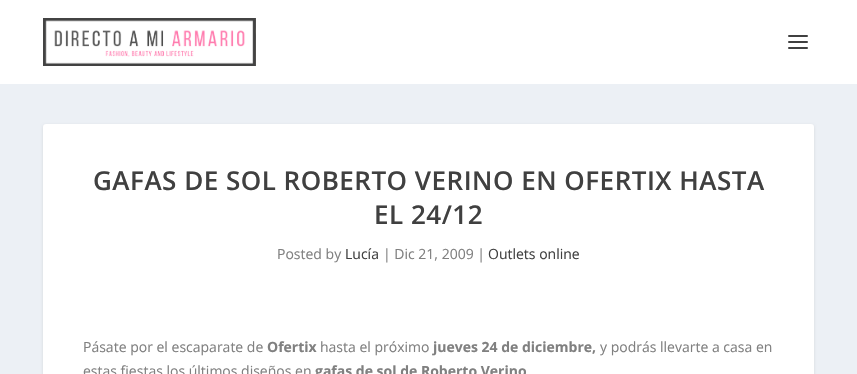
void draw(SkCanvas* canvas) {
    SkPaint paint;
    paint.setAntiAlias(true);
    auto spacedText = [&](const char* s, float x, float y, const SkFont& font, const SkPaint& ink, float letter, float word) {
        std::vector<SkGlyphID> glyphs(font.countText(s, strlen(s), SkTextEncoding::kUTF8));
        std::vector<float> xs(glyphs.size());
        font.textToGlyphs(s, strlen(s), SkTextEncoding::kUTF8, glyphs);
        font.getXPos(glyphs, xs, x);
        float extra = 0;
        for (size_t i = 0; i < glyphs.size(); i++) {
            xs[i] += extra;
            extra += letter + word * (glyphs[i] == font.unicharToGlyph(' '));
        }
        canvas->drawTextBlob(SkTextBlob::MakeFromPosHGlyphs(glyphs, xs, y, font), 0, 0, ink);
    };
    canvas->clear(0xFFECF0F5);
    paint.setColor(0xFFFFFFFF);
    canvas->drawRect(SkRect::MakeXYWH(0, 0, 857, 84), paint);
    canvas->drawImageRect(SkImages::DeferredFromEncodedData(SkData::MakeFromFileName("img1.png")), SkRect::MakeXYWH(43, 18, 213, 48), SkSamplingOptions());
    paint.setColor(0xFF404040);
    canvas->drawRoundRect(SkRect::MakeXYWH(788, 35, 20, 2), 1, 1, paint);
    canvas->drawRoundRect(SkRect::MakeXYWH(788, 41, 20, 2), 1, 1, paint);
    canvas->drawRoundRect(SkRect::MakeXYWH(788, 47, 20, 2), 1, 1, paint);
    paint.setColor(0x1A000000);
    paint.setMaskFilter(SkMaskFilter::MakeBlur(kNormal_SkBlurStyle, 1.5f));
    canvas->drawRoundRect(SkRect::MakeXYWH(43, 125, 771, 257), 3, 3, paint);
    paint.setMaskFilter(nullptr);
    paint.setColor(0xFFFFFFFF);
    canvas->drawRoundRect(SkRect::MakeXYWH(43, 124, 771, 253), 3, 3, paint);
    SkFont font1(fontMgr->matchFamilyStyle("Open Sans", SkFontStyle(600, SkFontStyle::kNormal_Width, SkFontStyle::kUpright_Slant)), 26);
    font1.setSubpixel(true);
    paint.setColor(0xFF404040);
    spacedText("GAFAS DE SOL ROBERTO VERINO EN OFERTIX HASTA", 93, 190, font1, paint, 0.5f, 0);
    spacedText("EL 24/12", 374, 224, font1, paint, 0.5f, 0);
    SkFont font2(fontMgr->matchFamilyStyle("Open Sans", SkFontStyle::Normal()), 14);
    font2.setSubpixel(true);
    paint.setColor(0xFF808080);
    canvas->drawString("Posted by", 277, 259, font2, paint);
    paint.setColor(0xFF404040);
    canvas->drawString("Lucía", 345, 259, font2, paint);
    paint.setColor(0xFF808080);
    canvas->drawString("| Dic 21, 2009 |", 383, 259, font2, paint);
    paint.setColor(0xFF404040);
    canvas->drawString("Outlets online", 488, 259, font2, paint);
    paint.setColor(0xFF808080);
    canvas->drawString("Pásate por el escaparate de", 83, 352, font2, paint);
    SkFont font3(fontMgr->matchFamilyStyle("Open Sans", SkFontStyle::Bold()), 14);
    font3.setSubpixel(true);
    canvas->drawString("Ofertix", 267, 352, font3, paint);
    canvas->drawString("hasta el próximo", 320, 352, font2, paint);
    canvas->drawString("jueves 24 de diciembre,", 433, 352, font3, paint);
    canvas->drawString("y podrás llevarte a casa en", 600, 352, font2, paint);
    canvas->drawString("estas fiestas los últimos diseños en", 83, 376, font2, paint);
    canvas->drawString("gafas de sol de Roberto Verino", 315, 376, font3, paint);
}
